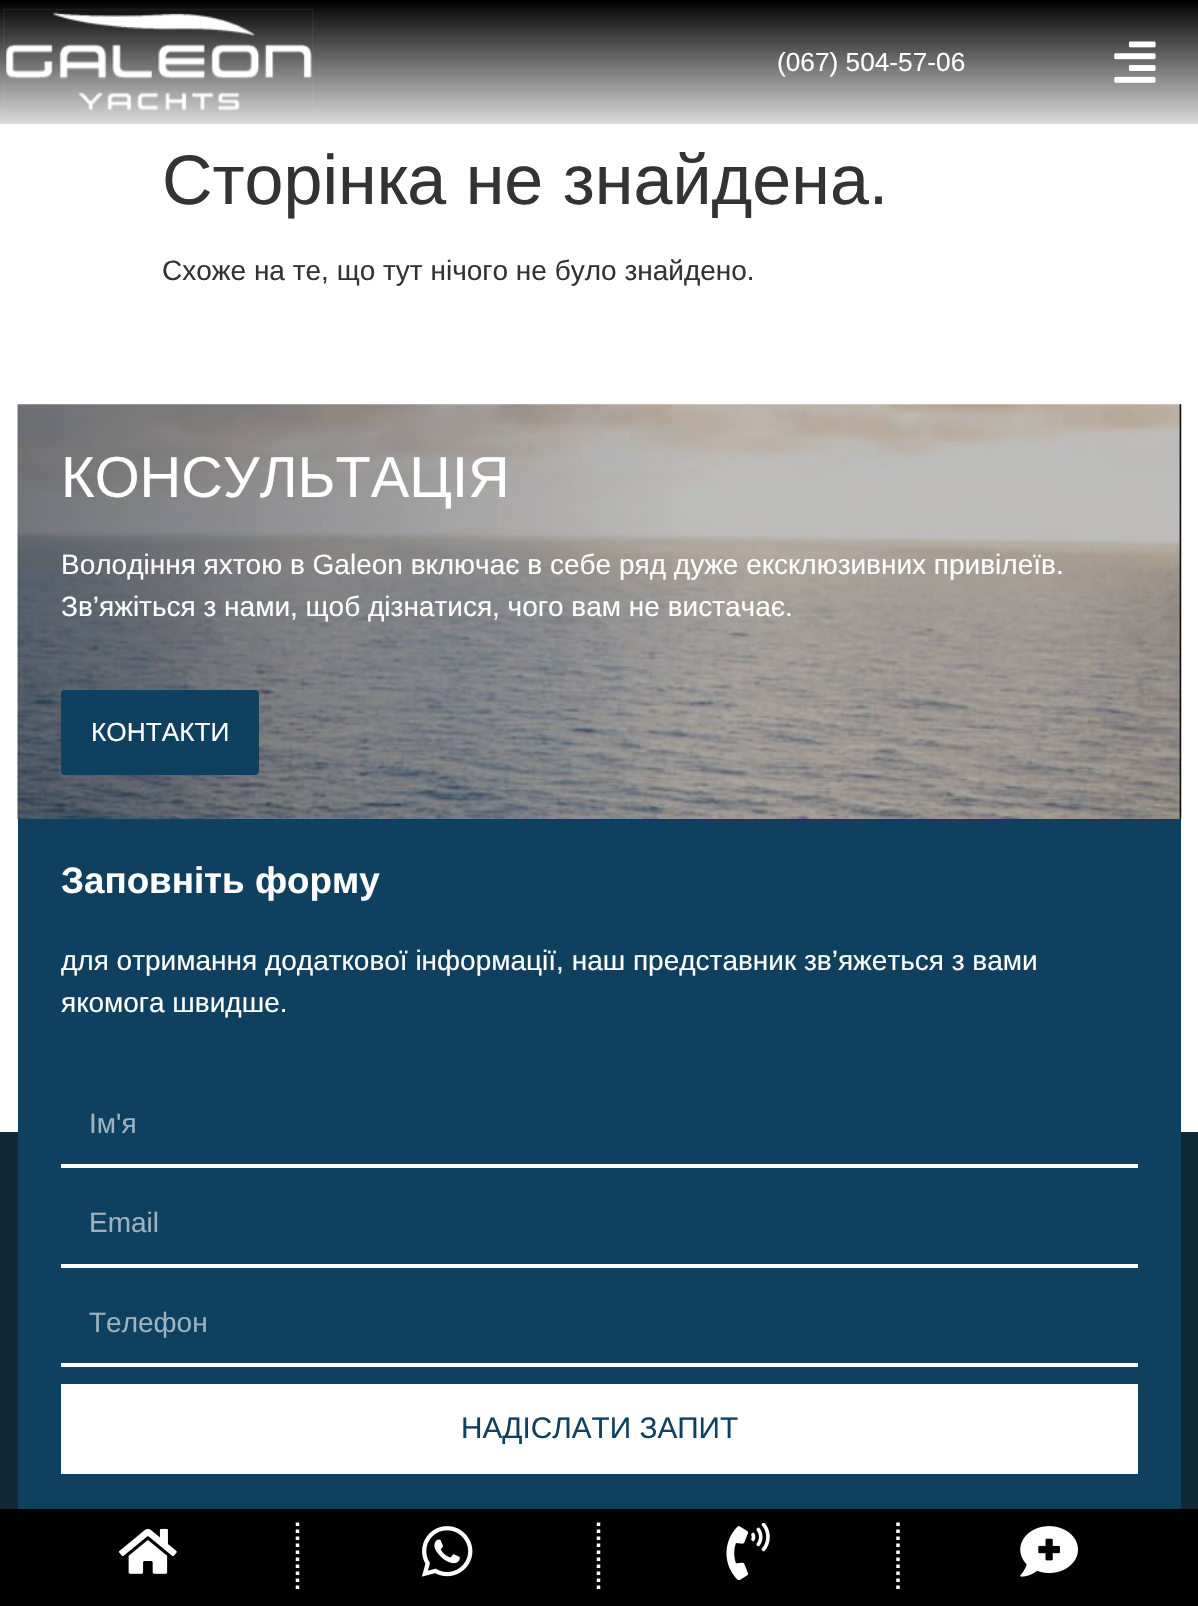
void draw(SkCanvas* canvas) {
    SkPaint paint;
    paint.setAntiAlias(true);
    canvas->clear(0xFFFFFFFF);
    {
        const SkColor colors[] = {0xFF000000, 0xFFDBDBDB};
        const float stops[] = {0, 1};
        const SkPoint ends[] = {{599, 0}, {599, 124}};
        paint.setShader(SkGradientShader::MakeLinear(ends, colors, stops, 2, SkTileMode::kClamp));
        paint.setAlpha(255);
    }
    canvas->drawRect(SkRect::MakeXYWH(0, 0, 1198, 124), paint);
    canvas->drawImageRect(SkImages::DeferredFromEncodedData(SkData::MakeFromFileName("img1.png")), SkRect::MakeXYWH(3, 8, 311, 103), SkSamplingOptions());
    SkFont font1(fontMgr->matchFamilyStyle("Liberation Sans", SkFontStyle::Normal()), 26.25f);
    font1.setSubpixel(true);
    paint.setShader(nullptr);
    paint.setColor(0xFFFFFFFF);
    canvas->drawString("(067) 504-57-06", 777, 71, font1, paint);
    canvas->drawImageRect(SkImages::DeferredFromEncodedData(SkData::MakeFromFileName("img2.png")), SkRect::MakeXYWH(1114, 41, 42, 42), SkSamplingOptions());
    SkFont font2(fontMgr->matchFamilyStyle("Liberation Sans", SkFontStyle::Normal()), 70);
    font2.setSubpixel(true);
    paint.setColor(0xFF333333);
    canvas->drawString("Сторінка не знайдена.", 162, 204, font2, paint);
    SkFont font3(fontMgr->matchFamilyStyle("Liberation Sans", SkFontStyle::Normal()), 28);
    font3.setSubpixel(true);
    canvas->drawString("Схоже на те, що тут нічого не було знайдено.", 162, 280, font3, paint);
    canvas->drawImageRect(SkImages::DeferredFromEncodedData(SkData::MakeFromFileName("img3.png")), SkRect::MakeXYWH(17, 404, 1165, 415), SkSamplingOptions());
    SkFont font4(fontMgr->matchFamilyStyle("Liberation Sans", SkFontStyle::Normal()), 57.75f);
    font4.setSubpixel(true);
    paint.setColor(0xFFFFFFFF);
    canvas->drawString("КОНСУЛЬТАЦІЯ", 61, 497, font4, paint);
    canvas->drawString("Володіння яхтою в Galeon включає в себе ряд дуже ексклюзивних привілеїв.", 61, 574, font3, paint);
    canvas->drawString("Зв’яжіться з нами, щоб дізнатися, чого вам не вистачає.", 61, 616, font3, paint);
    paint.setColor(0xFF10405F);
    canvas->drawRoundRect(SkRect::MakeXYWH(61, 690, 198, 85), 4, 4, paint);
    paint.setColor(0xFFFFFFFF);
    canvas->drawString("КОНТАКТИ", 91, 741, font1, paint);
    paint.setColor(0xFF112838);
    canvas->drawRect(SkRect::MakeXYWH(0, 1132, 1198, 377), paint);
    paint.setColor(0xFF10405F);
    canvas->drawRect(SkRect::MakeXYWH(18, 819, 1163, 690), paint);
    SkFont font5(fontMgr->matchFamilyStyle("Liberation Sans", SkFontStyle::Bold()), 36.75f);
    font5.setSubpixel(true);
    paint.setColor(0xFFFFFFFF);
    canvas->drawString("Заповніть форму", 61, 893, font5, paint);
    canvas->drawString("для отримання додаткової інформації, наш представник зв’яжеться з вами", 61, 970, font3, paint);
    canvas->drawString("якомога швидше.", 61, 1012, font3, paint);
    canvas->drawRect(SkRect::MakeXYWH(61, 1164, 1077, 4), paint);
    paint.setColor(0xFF9FB3BF);
    canvas->drawString("Ім'я", 89, 1133, font3, paint);
    paint.setColor(0xFFFFFFFF);
    canvas->drawRect(SkRect::MakeXYWH(61, 1264, 1077, 4), paint);
    paint.setColor(0xFF9FB3BF);
    canvas->drawString("Email", 89, 1232, font3, paint);
    paint.setColor(0xFFFFFFFF);
    canvas->drawRect(SkRect::MakeXYWH(61, 1363, 1077, 4), paint);
    paint.setColor(0xFF9FB3BF);
    canvas->drawString("Телефон", 89, 1332, font3, paint);
    paint.setColor(0xFFFFFFFF);
    canvas->drawRect(SkRect::MakeXYWH(61, 1384, 1077, 90), paint);
    SkFont font6(fontMgr->matchFamilyStyle("Liberation Sans", SkFontStyle::Normal()), 29.75f);
    font6.setSubpixel(true);
    paint.setColor(0xFF10405F);
    canvas->drawString("НАДІСЛАТИ ЗАПИТ", 461, 1438, font6, paint);
    paint.setColor(0xFF000000);
    canvas->drawRect(SkRect::MakeXYWH(0, 1509, 1198, 97), paint);
    paint.setStyle(SkPaint::kStroke_Style);
    paint.setStrokeWidth(3.5f);
    paint.setColor(0xFFFFFFFF);
    paint.setPathEffect(SkDashPathEffect::Make({{3.5f, 3.5f}}, 0));
    canvas->drawPath(SkPathBuilder().moveTo(297.5f, 1522.5f).lineTo(297.5f, 1592.5f).detach(), paint);
    paint.setPathEffect(nullptr);
    canvas->drawImageRect(SkImages::DeferredFromEncodedData(SkData::MakeFromFileName("img4.png")), SkRect::MakeXYWH(119, 1528, 58, 46), SkSamplingOptions());
    paint.setPathEffect(SkDashPathEffect::Make({{3.5f, 3.5f}}, 0));
    canvas->drawPath(SkPathBuilder().moveTo(598.5f, 1522.5f).lineTo(598.5f, 1592.5f).detach(), paint);
    paint.setPathEffect(nullptr);
    canvas->drawImageRect(SkImages::DeferredFromEncodedData(SkData::MakeFromFileName("img5.png")), SkRect::MakeXYWH(421, 1526, 52, 51), SkSamplingOptions());
    paint.setPathEffect(SkDashPathEffect::Make({{3.5f, 3.5f}}, 0));
    canvas->drawPath(SkPathBuilder().moveTo(898, 1522.5f).lineTo(898, 1592.5f).detach(), paint);
    paint.setPathEffect(nullptr);
    canvas->drawImageRect(SkImages::DeferredFromEncodedData(SkData::MakeFromFileName("img6.png")), SkRect::MakeXYWH(726, 1523, 44, 57), SkSamplingOptions());
    canvas->drawImageRect(SkImages::DeferredFromEncodedData(SkData::MakeFromFileName("img7.png")), SkRect::MakeXYWH(1020, 1526, 58, 51), SkSamplingOptions());
}
